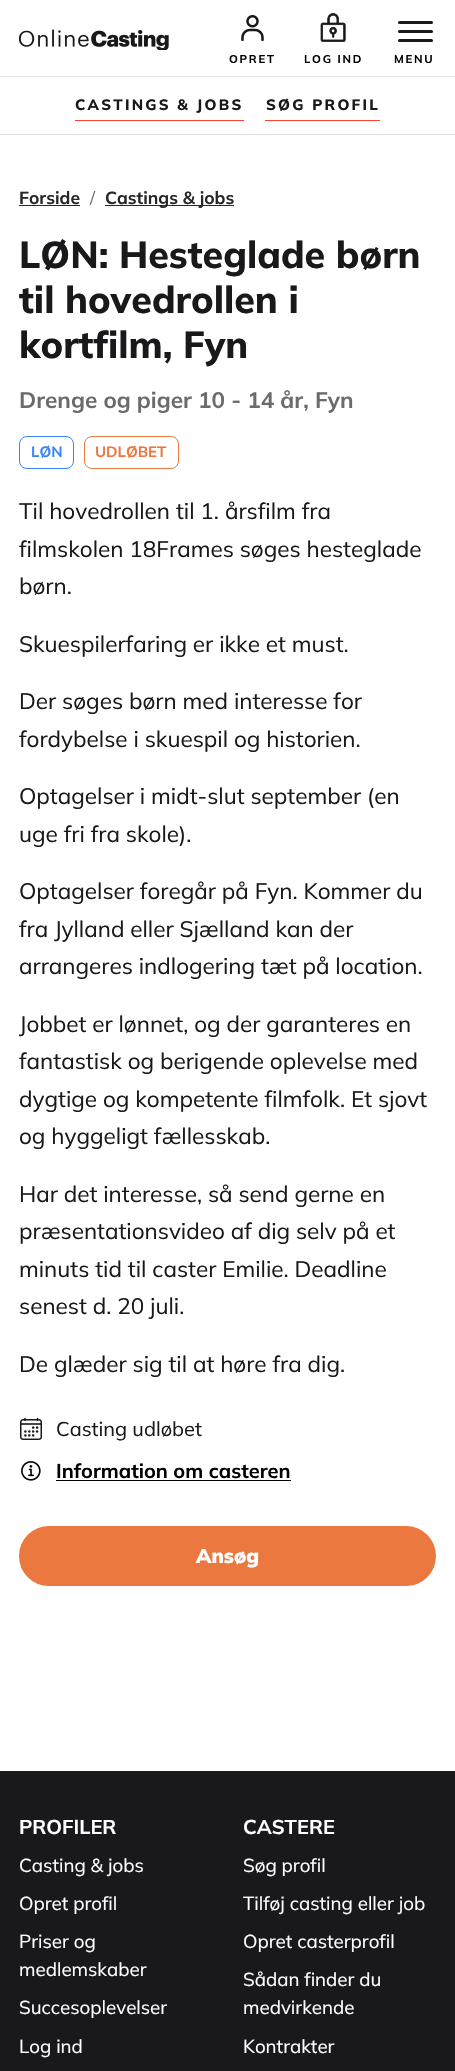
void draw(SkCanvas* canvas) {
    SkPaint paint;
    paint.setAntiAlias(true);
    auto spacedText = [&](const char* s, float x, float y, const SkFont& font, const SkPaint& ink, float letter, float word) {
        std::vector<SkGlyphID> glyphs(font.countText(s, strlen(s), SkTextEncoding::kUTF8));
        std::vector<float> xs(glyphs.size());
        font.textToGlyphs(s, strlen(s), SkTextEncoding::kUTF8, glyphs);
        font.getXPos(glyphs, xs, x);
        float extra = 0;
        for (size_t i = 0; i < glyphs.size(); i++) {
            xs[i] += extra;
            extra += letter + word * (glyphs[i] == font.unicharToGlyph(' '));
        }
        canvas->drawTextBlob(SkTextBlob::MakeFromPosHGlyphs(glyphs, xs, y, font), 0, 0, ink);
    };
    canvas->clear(0xFFFFFFFF);
    paint.setColor(0xFFE6E6E6);
    canvas->drawRect(SkRect::MakeXYWH(0, 76, 455, 1), paint);
    canvas->drawImageRect(SkImages::DeferredFromEncodedData(SkData::MakeFromFileName("img1.png")), SkRect::MakeXYWH(19, 29, 150, 21), SkSamplingOptions());
    canvas->drawImageRect(SkImages::DeferredFromEncodedData(SkData::MakeFromFileName("img2.png")), SkRect::MakeXYWH(241, 15, 23, 26), SkSamplingOptions());
    SkFont font1(fontMgr->matchFamilyStyle("Mulish", SkFontStyle::Bold()), 11.25f);
    font1.setSubpixel(true);
    paint.setColor(0xFF000000);
    spacedText("OPRET", 229, 63, font1, paint, 1.75f, 0);
    canvas->drawImageRect(SkImages::DeferredFromEncodedData(SkData::MakeFromFileName("img3.png")), SkRect::MakeXYWH(320, 13, 26, 29), SkSamplingOptions());
    spacedText("LOG IND", 304, 63, font1, paint, 1.75f, 0);
    paint.setColor(0xFF19191C);
    canvas->drawRoundRect(SkRect::MakeXYWH(398, 21, 35, 3), 1.5f, 1.5f, paint);
    canvas->drawRoundRect(SkRect::MakeXYWH(398, 30, 35, 3), 1.5f, 1.5f, paint);
    canvas->drawRoundRect(SkRect::MakeXYWH(398, 39, 35, 3), 1.5f, 1.5f, paint);
    paint.setColor(0xFF000000);
    spacedText("MENU", 394, 63, font1, paint, 1.75f, 0);
    paint.setColor(0xFFDFDFE8);
    canvas->drawRect(SkRect::MakeXYWH(0, 134, 455, 1), paint);
    SkFont font2(fontMgr->matchFamilyStyle("Mulish", SkFontStyle(800, SkFontStyle::kNormal_Width, SkFontStyle::kUpright_Slant)), 15);
    font2.setSubpixel(true);
    paint.setColor(0xFF19191C);
    spacedText("CASTINGS & JOBS", 75, 110, font2, paint, 2.25f, 0);
    paint.setColor(0xFFFF422E);
    canvas->drawRect(SkRect::MakeXYWH(75, 120, 169, 1), paint);
    paint.setColor(0xFF19191C);
    spacedText("SØG PROFIL", 266, 110, font2, paint, 2.25f, 0);
    paint.setColor(0xFFFF422E);
    canvas->drawRect(SkRect::MakeXYWH(265, 120, 115, 1), paint);
    SkFont font3(fontMgr->matchFamilyStyle("Mulish", SkFontStyle::Bold()), 17.5f);
    font3.setSubpixel(true);
    paint.setColor(0xFF272727);
    canvas->drawString("Forside", 19, 204, font3, paint);
    canvas->drawRect(SkRect::MakeXYWH(19, 205, 61, 1), paint);
    SkFont font4(fontMgr->matchFamilyStyle("Mulish", SkFontStyle::Normal()), 17.5f);
    font4.setSubpixel(true);
    paint.setColor(0xFF6C757D);
    canvas->drawString("/", 90, 204, font4, paint);
    paint.setColor(0xFF272727);
    canvas->drawRect(SkRect::MakeXYWH(105, 205, 129, 1), paint);
    canvas->drawString("Castings & jobs", 105, 204, font3, paint);
    SkFont font5(fontMgr->matchFamilyStyle("Mulish", SkFontStyle(800, SkFontStyle::kNormal_Width, SkFontStyle::kUpright_Slant)), 37.5f);
    font5.setSubpixel(true);
    paint.setColor(0xFF19191C);
    canvas->drawString("LØN: Hesteglade børn", 19, 268, font5, paint);
    canvas->drawString("til hovedrollen i", 19, 313, font5, paint);
    canvas->drawString("kortfilm, Fyn", 19, 358, font5, paint);
    SkFont font6(fontMgr->matchFamilyStyle("Mulish", SkFontStyle::Bold()), 22.5f);
    font6.setSubpixel(true);
    paint.setColor(0xFF6B6B6B);
    canvas->drawString("Drenge og piger 10 - 14 år, Fyn", 19, 408, font6, paint);
    paint.setStyle(SkPaint::kStroke_Style);
    paint.setStrokeWidth(1);
    paint.setColor(0xFF3A84F4);
    canvas->drawRoundRect(SkRect::MakeXYWH(19.5f, 436.5f, 54, 32), 7.5f, 7.5f, paint);
    SkFont font7(fontMgr->matchFamilyStyle("Mulish", SkFontStyle::Bold()), 15);
    font7.setSubpixel(true);
    paint.setStyle(SkPaint::kFill_Style);
    canvas->drawString("LØN", 31, 457, font7, paint);
    paint.setStyle(SkPaint::kStroke_Style);
    paint.setColor(0xFFEB783E);
    canvas->drawRoundRect(SkRect::MakeXYWH(84.5f, 436.5f, 94, 32), 7.5f, 7.5f, paint);
    paint.setStyle(SkPaint::kFill_Style);
    canvas->drawString("UDLØBET", 95, 457, font7, paint);
    SkFont font8(fontMgr->matchFamilyStyle("Mulish", SkFontStyle::Normal()), 22.5f);
    font8.setSubpixel(true);
    paint.setColor(0xFF19191C);
    canvas->drawString("Til hovedrollen til 1. årsfilm fra", 19, 519, font8, paint);
    canvas->drawString("filmskolen 18Frames søges hesteglade", 19, 557, font8, paint);
    canvas->drawString("børn.", 19, 594, font8, paint);
    canvas->drawString("Skuespilerfaring er ikke et must.", 19, 652, font8, paint);
    canvas->drawString("Der søges børn med interesse for", 19, 709, font8, paint);
    canvas->drawString("fordybelse i skuespil og historien.", 19, 747, font8, paint);
    canvas->drawString("Optagelser i midt-slut september (en", 19, 804, font8, paint);
    canvas->drawString("uge fri fra skole).", 19, 842, font8, paint);
    canvas->drawString("Optagelser foregår på Fyn. Kommer du", 19, 899, font8, paint);
    canvas->drawString("fra Jylland eller Sjælland kan der", 19, 937, font8, paint);
    canvas->drawString("arrangeres indlogering tæt på location.", 19, 974, font8, paint);
    canvas->drawString("Jobbet er lønnet, og der garanteres en", 19, 1032, font8, paint);
    canvas->drawString("fantastisk og berigende oplevelse med", 19, 1069, font8, paint);
    canvas->drawString("dygtige og kompetente filmfolk. Et sjovt", 19, 1107, font8, paint);
    canvas->drawString("og hyggeligt fællesskab.", 19, 1144, font8, paint);
    canvas->drawString("Har det interesse, så send gerne en", 19, 1202, font8, paint);
    canvas->drawString("præsentationsvideo af dig selv på et", 19, 1239, font8, paint);
    canvas->drawString("minuts tid til caster Emilie. Deadline", 19, 1277, font8, paint);
    canvas->drawString("senest d. 20 juli.", 19, 1314, font8, paint);
    canvas->drawString("De glæder sig til at høre fra dig.", 19, 1372, font8, paint);
    canvas->drawImageRect(SkImages::DeferredFromEncodedData(SkData::MakeFromFileName("img4.png")), SkRect::MakeXYWH(20, 1417, 22, 23), SkSamplingOptions());
    SkFont font9(fontMgr->matchFamilyStyle("Mulish", SkFontStyle::Normal()), 20);
    font9.setSubpixel(true);
    canvas->drawString("Casting udløbet", 56, 1436, font9, paint);
    canvas->drawImageRect(SkImages::DeferredFromEncodedData(SkData::MakeFromFileName("img5.png")), SkRect::MakeXYWH(21, 1461, 20, 20), SkSamplingOptions());
    SkFont font10(fontMgr->matchFamilyStyle("Mulish", SkFontStyle::Bold()), 20);
    font10.setSubpixel(true);
    paint.setColor(0xFF000000);
    canvas->drawString("Information om casteren", 56, 1478, font10, paint);
    canvas->drawRect(SkRect::MakeXYWH(56, 1480, 235, 1), paint);
    paint.setColor(0xFFEB783E);
    canvas->drawRoundRect(SkRect::MakeXYWH(20.5f, 1527.5f, 414, 57), 28.5f, 28.5f, paint);
    paint.setStyle(SkPaint::kStroke_Style);
    paint.setStrokeWidth(3);
    canvas->drawRoundRect(SkRect::MakeXYWH(20.5f, 1527.5f, 414, 57), 28.5f, 28.5f, paint);
    SkFont font11(fontMgr->matchFamilyStyle("Mulish", SkFontStyle(900, SkFontStyle::kNormal_Width, SkFontStyle::kUpright_Slant)), 20);
    font11.setSubpixel(true);
    paint.setStyle(SkPaint::kFill_Style);
    paint.setColor(0xFFFFFFFF);
    canvas->drawString("Ansøg", 196, 1563, font11, paint);
    paint.setColor(0xFF19191C);
    canvas->drawRect(SkRect::MakeXYWH(0, 1771, 455, 300), paint);
    paint.setColor(0xFFFFFFFF);
    canvas->drawString("PROFILER", 19, 1834, font10, paint);
    SkFont font12(fontMgr->matchFamilyStyle("Mulish", SkFontStyle::Normal()), 18.75f);
    font12.setSubpixel(true);
    canvas->drawString("Casting & jobs", 19, 1872, font12, paint);
    canvas->drawString("Opret profil", 19, 1910, font12, paint);
    canvas->drawString("Priser og", 19, 1948, font12, paint);
    canvas->drawString("medlemskaber", 19, 1976, font12, paint);
    canvas->drawString("Succesoplevelser", 19, 2014, font12, paint);
    canvas->drawString("Log ind", 19, 2053, font12, paint);
    canvas->drawString("CASTERE", 243, 1834, font10, paint);
    canvas->drawString("Søg profil", 243, 1872, font12, paint);
    canvas->drawString("Tilføj casting eller job", 243, 1910, font12, paint);
    canvas->drawString("Opret casterprofil", 243, 1948, font12, paint);
    canvas->drawString("Sådan finder du", 243, 1986, font12, paint);
    canvas->drawString("medvirkende", 243, 2014, font12, paint);
    canvas->drawString("Kontrakter", 243, 2053, font12, paint);
}
